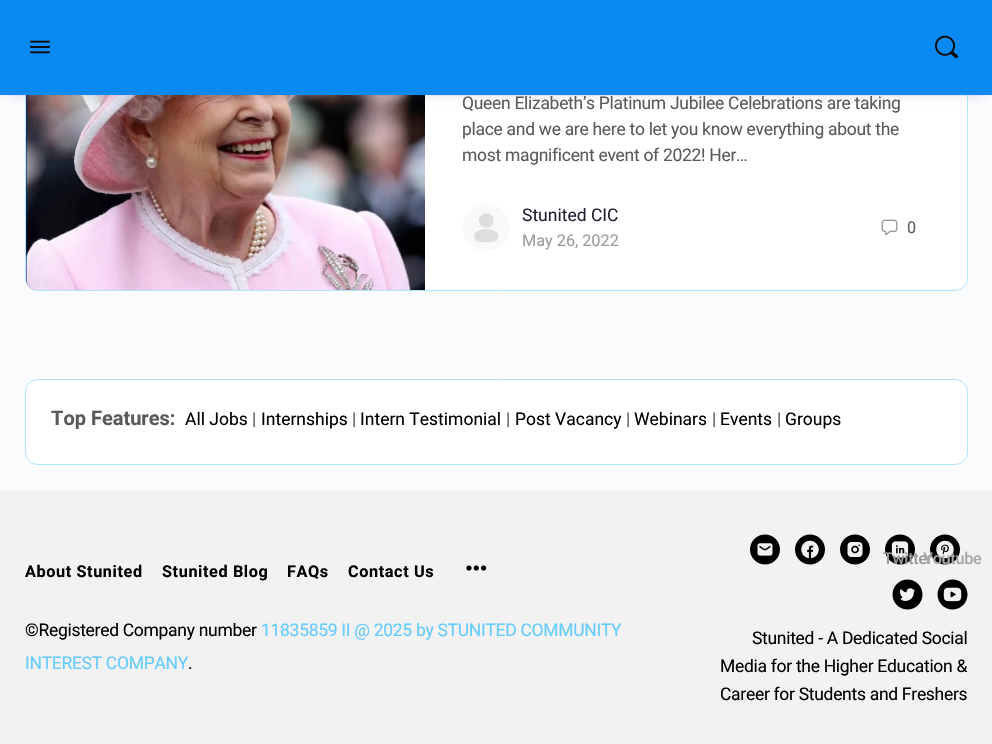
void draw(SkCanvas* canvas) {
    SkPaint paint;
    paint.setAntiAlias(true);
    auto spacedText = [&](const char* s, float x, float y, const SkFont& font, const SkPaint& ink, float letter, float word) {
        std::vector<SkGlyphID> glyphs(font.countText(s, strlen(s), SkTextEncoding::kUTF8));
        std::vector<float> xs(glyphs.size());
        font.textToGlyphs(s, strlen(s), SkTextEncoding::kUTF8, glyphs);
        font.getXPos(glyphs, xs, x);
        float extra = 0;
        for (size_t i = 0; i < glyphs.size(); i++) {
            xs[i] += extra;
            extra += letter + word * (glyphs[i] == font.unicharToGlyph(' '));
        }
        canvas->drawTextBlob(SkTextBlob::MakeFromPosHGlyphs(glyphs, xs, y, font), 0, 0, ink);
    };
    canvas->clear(0xFFFAFBFD);
    paint.setColor(0xFFFFFFFF);
    canvas->drawRoundRect(SkRect::MakeXYWH(25.5f, -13.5f, 942, 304), 12.5f, 12.5f, paint);
    paint.setStyle(SkPaint::kStroke_Style);
    paint.setStrokeWidth(1);
    paint.setColor(0xFFB2E4FF);
    canvas->drawRoundRect(SkRect::MakeXYWH(25.5f, -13.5f, 942, 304), 12.5f, 12.5f, paint);
    paint.setStyle(SkPaint::kFill_Style);
    paint.setColor(0xFF033360);
    canvas->drawPath(SkPathBuilder().moveTo(37, -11).lineTo(425, -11).lineTo(425, 290).lineTo(37, 290).cubicTo(31, 290, 26, 285, 26, 279).lineTo(26, 0).cubicTo(26, -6, 31, -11, 37, -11).close().detach(), paint);
    canvas->drawImageRect(SkImages::DeferredFromEncodedData(SkData::MakeFromFileName("img3.png")), SkRect::MakeXYWH(26, 95, 399, 195), SkSamplingOptions());
    paint.setColor(0x4041476C);
    paint.setMaskFilter(SkMaskFilter::MakeBlur(kNormal_SkBlurStyle, 6));
    canvas->drawRect(SkRect::MakeXYWH(9, 15, 975, 78), paint);
    paint.setMaskFilter(nullptr);
    paint.setColor(0x0D8B8D9D);
    canvas->drawPath(SkPathBuilder().moveTo(0, 95).lineTo(0, 96).lineTo(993, 96).lineTo(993, 1).lineTo(992, 1).lineTo(992, 95).close().detach(), paint);
    paint.setColor(0xFF0989F2);
    canvas->drawRect(SkRect::MakeXYWH(0, 0, 992, 95), paint);
    canvas->drawImageRect(SkImages::DeferredFromEncodedData(SkData::MakeFromFileName("img1.png")), SkRect::MakeXYWH(30, 40, 20, 14), SkSamplingOptions());
    canvas->drawImageRect(SkImages::DeferredFromEncodedData(SkData::MakeFromFileName("img2.png")), SkRect::MakeXYWH(935, 35, 23, 24), SkSamplingOptions());
    SkFont font1(fontMgr->matchFamilyStyle("Roboto", SkFontStyle::Normal()), 17.5f);
    font1.setSubpixel(true);
    paint.setColor(0xFF5A5A5A);
    spacedText("Queen Elizabeth’s Platinum Jubilee Celebrations are taking", 462, 109, font1, paint, -0.3f, 0);
    spacedText("place and we are here to let you know everything about the", 462, 135, font1, paint, -0.3f, 0);
    spacedText("most magnificent event of 2022! Her…", 462, 161, font1, paint, -0.3f, 0);
    canvas->drawImageRect(SkImages::DeferredFromEncodedData(SkData::MakeFromFileName("img4.png")), SkRect::MakeXYWH(463, 204, 47, 47), SkSamplingOptions());
    paint.setColor(0xFF1E2132);
    canvas->drawString("Stunited CIC", 522, 221, font1, paint);
    SkFont font2(fontMgr->matchFamilyStyle("Roboto", SkFontStyle::Normal()), 16.25f);
    font2.setSubpixel(true);
    paint.setColor(0xFF9B9C9F);
    canvas->drawString("May 26, 2022", 522, 246, font2, paint);
    canvas->drawImageRect(SkImages::DeferredFromEncodedData(SkData::MakeFromFileName("img5.png")), SkRect::MakeXYWH(881, 219, 17, 17), SkSamplingOptions());
    paint.setColor(0xFF5A5A5A);
    canvas->drawString("0", 907, 233, font2, paint);
    paint.setColor(0xFFFFFFFF);
    canvas->drawRoundRect(SkRect::MakeXYWH(25.5f, 379.5f, 942, 85), 12.5f, 12.5f, paint);
    paint.setStyle(SkPaint::kStroke_Style);
    paint.setColor(0xFFB2E4FF);
    canvas->drawRoundRect(SkRect::MakeXYWH(25.5f, 379.5f, 942, 85), 12.5f, 12.5f, paint);
    SkFont font3(fontMgr->matchFamilyStyle("Roboto", SkFontStyle::Bold()), 20);
    font3.setSubpixel(true);
    paint.setStyle(SkPaint::kFill_Style);
    paint.setColor(0xFF5A5A5A);
    canvas->drawString("Top Features:", 51, 425, font3, paint);
    paint.setColor(0xFF000000);
    canvas->drawString("All Jobs", 185, 425, font1, paint);
    paint.setColor(0xFF5A5A5A);
    canvas->drawString("|", 252, 425, font1, paint);
    paint.setColor(0xFF000000);
    canvas->drawString("Internships", 261, 425, font1, paint);
    paint.setColor(0xFF5A5A5A);
    canvas->drawString("|", 352, 425, font1, paint);
    paint.setColor(0xFF000000);
    canvas->drawString("Intern Testimonial", 360, 425, font1, paint);
    paint.setColor(0xFF5A5A5A);
    canvas->drawString("|", 506, 425, font1, paint);
    paint.setColor(0xFF000000);
    canvas->drawString("Post Vacancy", 515, 425, font1, paint);
    paint.setColor(0xFF5A5A5A);
    canvas->drawString("|", 626, 425, font1, paint);
    paint.setColor(0xFF000000);
    canvas->drawString("Webinars", 634, 425, font1, paint);
    paint.setColor(0xFF5A5A5A);
    canvas->drawString("|", 712, 425, font1, paint);
    paint.setColor(0xFF000000);
    canvas->drawString("Events", 720, 425, font1, paint);
    paint.setColor(0xFF5A5A5A);
    canvas->drawString("|", 777, 425, font1, paint);
    paint.setColor(0xFF000000);
    canvas->drawString("Groups", 785, 425, font1, paint);
    paint.setColor(0xFFF2F2F2);
    canvas->drawRect(SkRect::MakeXYWH(0, 490, 992, 254), paint);
    SkFont font4(fontMgr->matchFamilyStyle("Roboto", SkFontStyle::Bold()), 16.25f);
    font4.setSubpixel(true);
    paint.setColor(0xFF000000);
    spacedText("About Stunited", 25, 577, font4, paint, 0.6f, 0);
    spacedText("Stunited Blog", 162, 577, font4, paint, 0.6f, 0);
    spacedText("FAQs", 287, 577, font4, paint, 0.6f, 0);
    spacedText("Contact Us", 348, 577, font4, paint, 0.6f, 0);
    canvas->drawImageRect(SkImages::DeferredFromEncodedData(SkData::MakeFromFileName("img6.png")), SkRect::MakeXYWH(466, 565, 21, 6), SkSamplingOptions());
    spacedText("©Registered Company number", 25, 636, font1, paint, -0.3f, 0);
    paint.setColor(0xFF66CBFF);
    spacedText("11835859 II @ 2025 by STUNITED COMMUNITY", 261, 636, font1, paint, -0.3f, 0);
    spacedText("INTEREST COMPANY", 25, 669, font1, paint, -0.3f, 0);
    paint.setColor(0xFF000000);
    spacedText(".", 188, 669, font1, paint, -0.3f, 0);
    canvas->drawImageRect(SkImages::DeferredFromEncodedData(SkData::MakeFromFileName("img7.png")), SkRect::MakeXYWH(750, 534, 30, 31), SkSamplingOptions());
    canvas->drawImageRect(SkImages::DeferredFromEncodedData(SkData::MakeFromFileName("img8.png")), SkRect::MakeXYWH(795, 534, 30, 31), SkSamplingOptions());
    canvas->drawImageRect(SkImages::DeferredFromEncodedData(SkData::MakeFromFileName("img9.png")), SkRect::MakeXYWH(840, 534, 30, 31), SkSamplingOptions());
    canvas->drawImageRect(SkImages::DeferredFromEncodedData(SkData::MakeFromFileName("img10.png")), SkRect::MakeXYWH(885, 534, 30, 31), SkSamplingOptions());
    canvas->drawImageRect(SkImages::DeferredFromEncodedData(SkData::MakeFromFileName("img11.png")), SkRect::MakeXYWH(930, 534, 30, 31), SkSamplingOptions());
    SkFont font5(fontMgr->matchFamilyStyle("Roboto", SkFontStyle(500, SkFontStyle::kNormal_Width, SkFontStyle::kUpright_Slant)), 16.25f);
    font5.setSubpixel(true);
    paint.setColor(0xFF999999);
    spacedText("Twitter", 883, 564, font5, paint, -0.3f, 0);
    canvas->drawImageRect(SkImages::DeferredFromEncodedData(SkData::MakeFromFileName("img12.png")), SkRect::MakeXYWH(892, 579, 31, 31), SkSamplingOptions());
    paint.setColor(0xFFA8A8A8);
    spacedText("Youtube", 923, 564, font5, paint, -0.3f, 0);
    canvas->drawImageRect(SkImages::DeferredFromEncodedData(SkData::MakeFromFileName("img13.png")), SkRect::MakeXYWH(937, 579, 31, 31), SkSamplingOptions());
    paint.setColor(0xFF000000);
    spacedText("Stunited - A Dedicated Social", 752, 644, font1, paint, -0.3f, 0);
    spacedText("Media for the Higher Education &", 720, 672, font1, paint, -0.3f, 0);
    spacedText("Career for Students and Freshers", 720, 700, font1, paint, -0.3f, 0);
}
